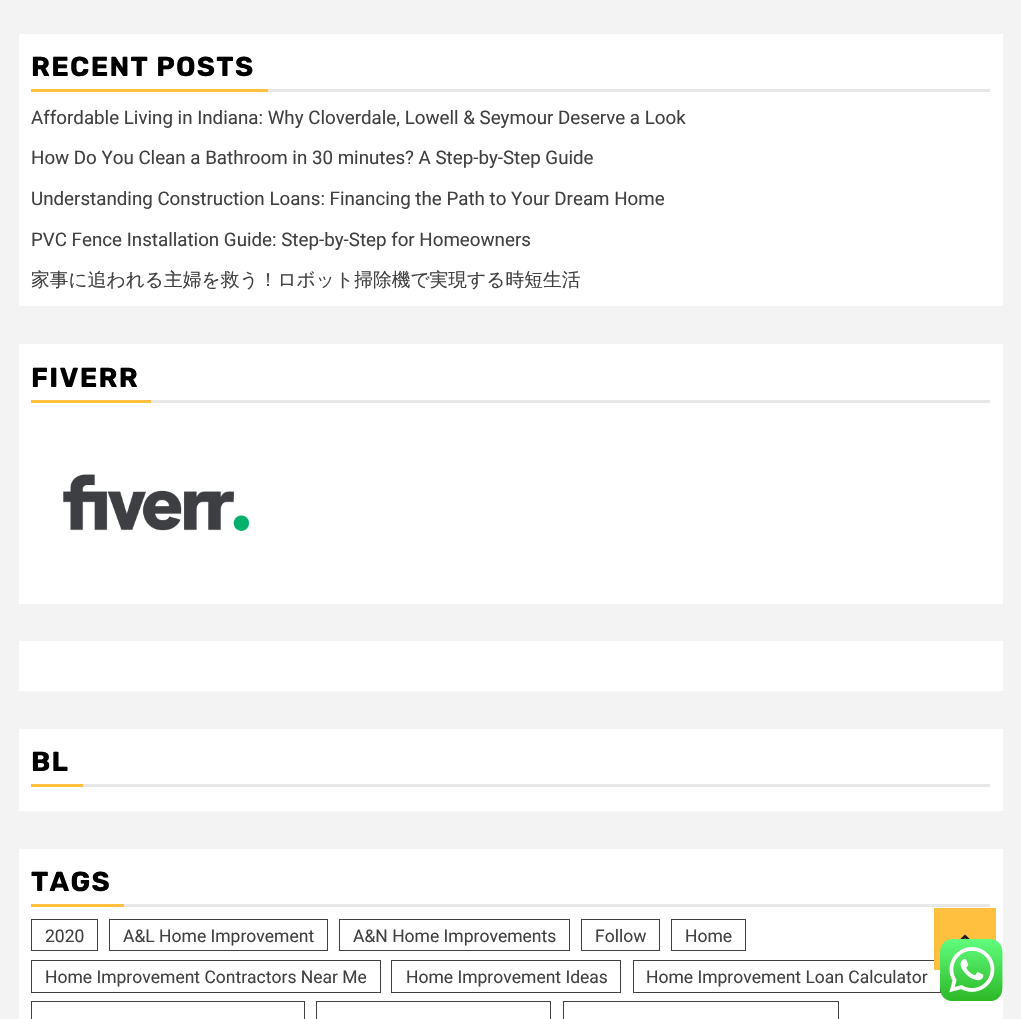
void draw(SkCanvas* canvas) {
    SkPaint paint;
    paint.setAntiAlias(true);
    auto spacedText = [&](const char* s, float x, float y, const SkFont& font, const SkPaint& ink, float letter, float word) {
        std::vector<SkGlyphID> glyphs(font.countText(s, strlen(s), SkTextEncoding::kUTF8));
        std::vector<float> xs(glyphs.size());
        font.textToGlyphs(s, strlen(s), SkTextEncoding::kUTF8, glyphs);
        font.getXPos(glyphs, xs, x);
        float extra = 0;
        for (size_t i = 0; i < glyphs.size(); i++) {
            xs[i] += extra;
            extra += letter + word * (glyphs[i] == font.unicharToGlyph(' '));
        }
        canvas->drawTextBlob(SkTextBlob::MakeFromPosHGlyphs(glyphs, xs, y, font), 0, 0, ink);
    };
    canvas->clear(0xFFF3F3F3);
    paint.setColor(0xFFFFFFFF);
    canvas->drawRect(SkRect::MakeXYWH(19, 34, 984, 272), paint);
    paint.setColor(0xFFFFBF3F);
    canvas->drawRect(SkRect::MakeXYWH(31, 89, 237, 3), paint);
    SkFont font1(fontMgr->matchFamilyStyle("Rubik", SkFontStyle::Bold()), 27.5f);
    font1.setSubpixel(true);
    paint.setColor(0xFF000000);
    spacedText("RECENT POSTS", 31, 76, font1, paint, 1.25f, 0);
    paint.setColor(0xFFE7E7E7);
    canvas->drawRect(SkRect::MakeXYWH(268, 89, 722, 3), paint);
    SkFont font2(fontMgr->matchFamilyStyle("Roboto", SkFontStyle::Normal()), 18.75f);
    font2.setSubpixel(true);
    paint.setColor(0xFF404040);
    canvas->drawString("Affordable Living in Indiana: Why Cloverdale, Lowell & Seymour Deserve a Look", 31, 124, font2, paint);
    canvas->drawString("How Do You Clean a Bathroom in 30 minutes? A Step-by-Step Guide", 31, 164, font2, paint);
    canvas->drawString("Understanding Construction Loans: Financing the Path to Your Dream Home", 31, 205, font2, paint);
    canvas->drawString("PVC Fence Installation Guide: Step-by-Step for Homeowners", 31, 246, font2, paint);
    SkFont font3(fontMgr->matchFamilyStyle("WenQuanYi Zen Hei", SkFontStyle(500, SkFontStyle::kNormal_Width, SkFontStyle::kUpright_Slant)), 18.75f);
    font3.setSubpixel(true);
    canvas->drawString("家事に追われる主婦を救う！ロボット掃除機で実現する時短生活", 31, 286, font3, paint);
    paint.setColor(0xFFFFFFFF);
    canvas->drawRect(SkRect::MakeXYWH(19, 344, 984, 260), paint);
    paint.setColor(0xFFFFBF3F);
    canvas->drawRect(SkRect::MakeXYWH(31, 400, 120, 3), paint);
    paint.setColor(0xFF000000);
    spacedText("FIVERR", 31, 387, font1, paint, 1.25f, 0);
    paint.setColor(0xFFE7E7E7);
    canvas->drawRect(SkRect::MakeXYWH(151, 400, 839, 3), paint);
    canvas->drawImageRect(SkImages::DeferredFromEncodedData(SkData::MakeFromFileName("img1.png")), SkRect::MakeXYWH(63, 474, 187, 57), SkSamplingOptions());
    paint.setColor(0xFFFFFFFF);
    canvas->drawRect(SkRect::MakeXYWH(19, 641, 984, 50), paint);
    canvas->drawRect(SkRect::MakeXYWH(19, 729, 984, 82), paint);
    paint.setColor(0xFFFFBF3F);
    canvas->drawRect(SkRect::MakeXYWH(31, 784, 52, 3), paint);
    paint.setColor(0xFF000000);
    spacedText("BL", 31, 771, font1, paint, 1.25f, 0);
    paint.setColor(0xFFE7E7E7);
    canvas->drawRect(SkRect::MakeXYWH(83, 784, 907, 3), paint);
    paint.setColor(0xFFFFFFFF);
    canvas->drawRect(SkRect::MakeXYWH(19, 849, 984, 170), paint);
    paint.setColor(0xFFFFBF3F);
    canvas->drawRect(SkRect::MakeXYWH(31, 904, 93, 3), paint);
    paint.setColor(0xFF000000);
    spacedText("TAGS", 31, 891, font1, paint, 1.25f, 0);
    paint.setColor(0xFFE7E7E7);
    canvas->drawRect(SkRect::MakeXYWH(124, 904, 866, 3), paint);
    paint.setStyle(SkPaint::kStroke_Style);
    paint.setStrokeWidth(1);
    paint.setColor(0xFF404040);
    canvas->drawRect(SkRect::MakeXYWH(31.5f, 919.5f, 66, 31), paint);
    SkFont font4(fontMgr->matchFamilyStyle("Roboto", SkFontStyle::Normal()), 17.5f);
    font4.setSubpixel(true);
    paint.setStyle(SkPaint::kFill_Style);
    canvas->drawString("2020", 45, 942, font4, paint);
    paint.setStyle(SkPaint::kStroke_Style);
    canvas->drawRect(SkRect::MakeXYWH(109.5f, 919.5f, 218, 31), paint);
    paint.setStyle(SkPaint::kFill_Style);
    canvas->drawString("A&L Home Improvement", 123, 942, font4, paint);
    paint.setStyle(SkPaint::kStroke_Style);
    canvas->drawRect(SkRect::MakeXYWH(339.5f, 919.5f, 230, 31), paint);
    paint.setStyle(SkPaint::kFill_Style);
    canvas->drawString("A&N Home Improvements", 353, 942, font4, paint);
    paint.setStyle(SkPaint::kStroke_Style);
    canvas->drawRect(SkRect::MakeXYWH(581.5f, 919.5f, 78, 31), paint);
    paint.setStyle(SkPaint::kFill_Style);
    canvas->drawString("Follow", 595, 942, font4, paint);
    paint.setStyle(SkPaint::kStroke_Style);
    canvas->drawRect(SkRect::MakeXYWH(671.5f, 919.5f, 74, 31), paint);
    paint.setStyle(SkPaint::kFill_Style);
    canvas->drawString("Home", 685, 942, font4, paint);
    paint.setStyle(SkPaint::kStroke_Style);
    canvas->drawRect(SkRect::MakeXYWH(31.5f, 960.5f, 349, 32), paint);
    paint.setStyle(SkPaint::kFill_Style);
    canvas->drawString("Home Improvement Contractors Near Me", 45, 983, font4, paint);
    paint.setStyle(SkPaint::kStroke_Style);
    canvas->drawRect(SkRect::MakeXYWH(391.5f, 960.5f, 229, 32), paint);
    paint.setStyle(SkPaint::kFill_Style);
    canvas->drawString("Home Improvement Ideas", 406, 983, font4, paint);
    paint.setStyle(SkPaint::kStroke_Style);
    canvas->drawRect(SkRect::MakeXYWH(633.5f, 960.5f, 307, 32), paint);
    paint.setStyle(SkPaint::kFill_Style);
    canvas->drawString("Home Improvement Loan Calculator", 646, 983, font4, paint);
    paint.setStyle(SkPaint::kStroke_Style);
    canvas->drawRect(SkRect::MakeXYWH(31.5f, 1001.5f, 273, 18), paint);
    canvas->drawRect(SkRect::MakeXYWH(316.5f, 1001.5f, 234, 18), paint);
    canvas->drawRect(SkRect::MakeXYWH(563.5f, 1001.5f, 275, 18), paint);
    paint.setStyle(SkPaint::kFill_Style);
    paint.setColor(0xFFFFBF3F);
    canvas->drawRect(SkRect::MakeXYWH(934, 908, 62, 62), paint);
    canvas->drawImageRect(SkImages::DeferredFromEncodedData(SkData::MakeFromFileName("img2.png")), SkRect::MakeXYWH(960, 934, 10, 5), SkSamplingOptions());
    canvas->drawImageRect(SkImages::DeferredFromEncodedData(SkData::MakeFromFileName("img3.png")), SkRect::MakeXYWH(940, 939, 63, 62), SkSamplingOptions());
}
